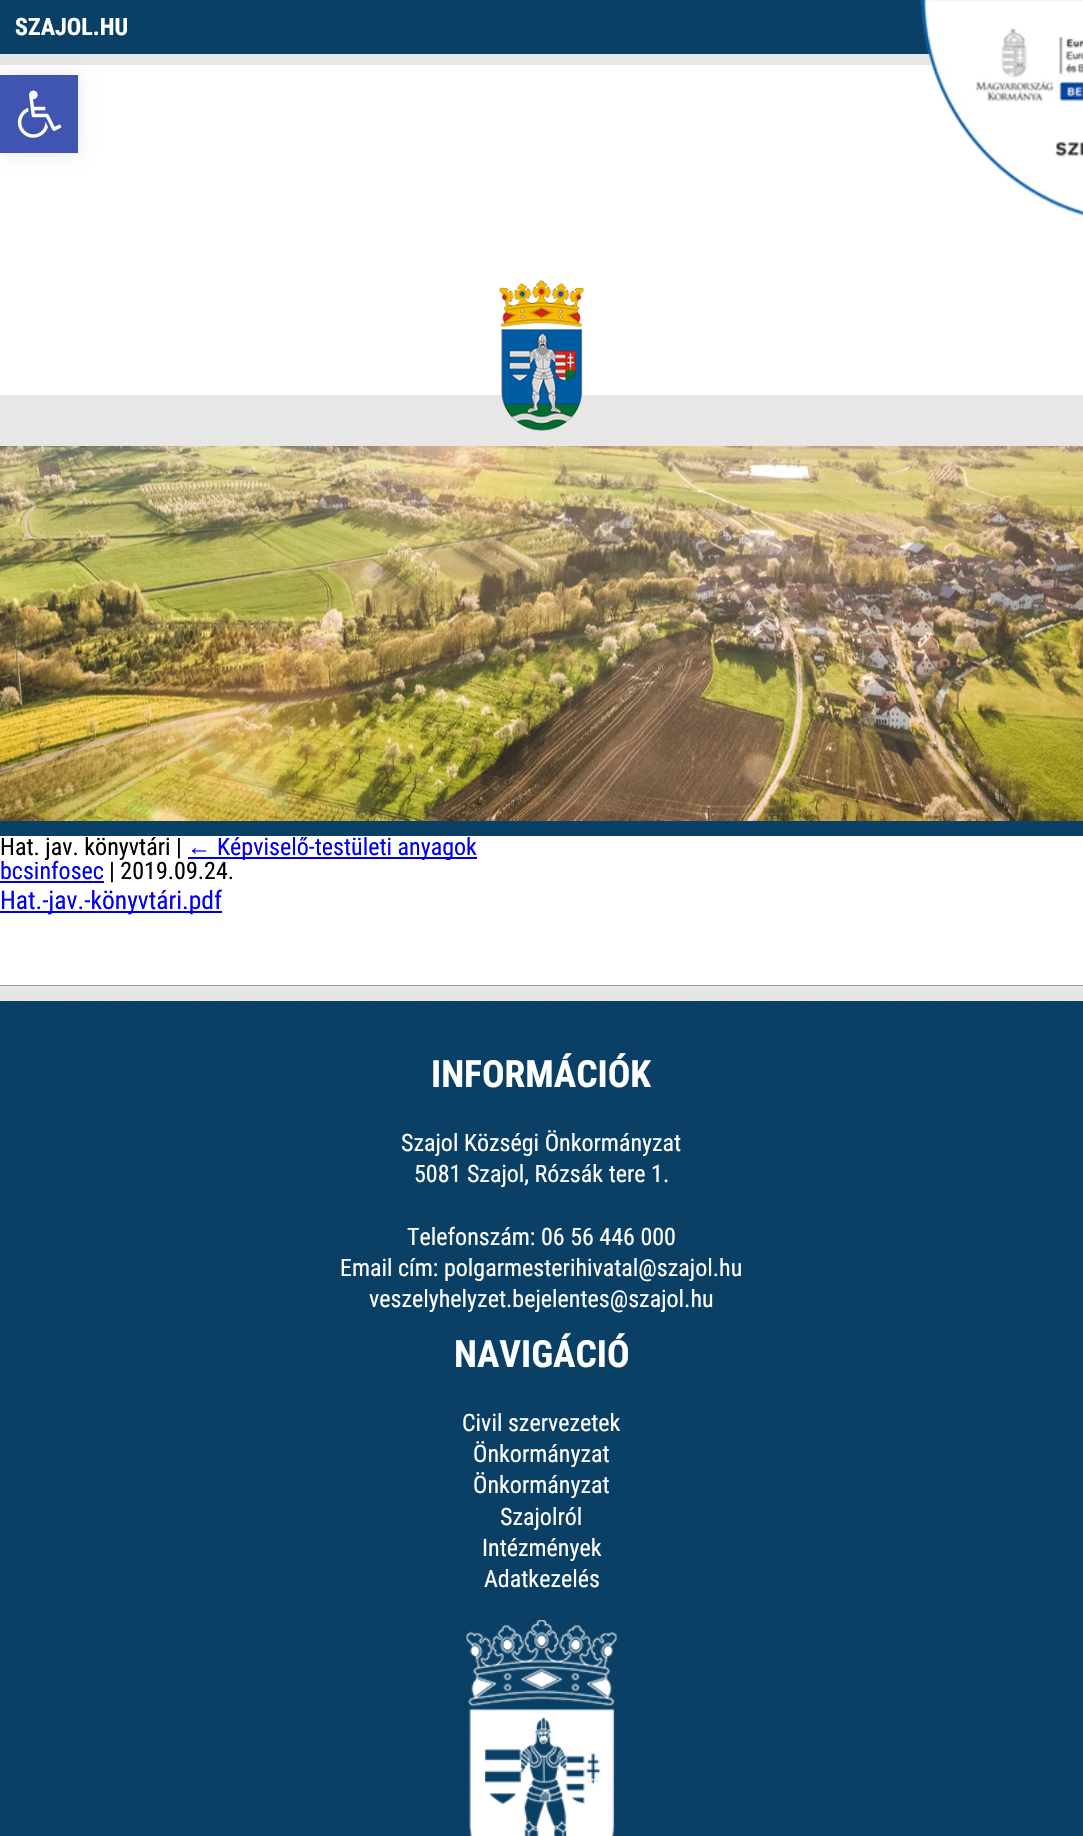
void draw(SkCanvas* canvas) {
    SkPaint paint;
    paint.setAntiAlias(true);
    canvas->clear(0xFFFFFFFF);
    paint.setColor(0xFFE7E7E7);
    canvas->drawRect(SkRect::MakeXYWH(0, 54, 934, 11), paint);
    paint.setColor(0xFF0A4065);
    canvas->drawRect(SkRect::MakeXYWH(0, 0, 1083, 54), paint);
    canvas->drawImageRect(SkImages::DeferredFromEncodedData(SkData::MakeFromFileName("img1.png")), SkRect::MakeXYWH(920, 0, 163, 217), SkSamplingOptions());
    SkFont font1(fontMgr->matchFamilyStyle("Roboto Condensed", SkFontStyle::Bold()), 24);
    font1.setSubpixel(true);
    paint.setColor(0xFFFFFFFF);
    canvas->drawString("SZAJOL.HU", 15, 35, font1, paint);
    paint.setColor(0x1A000000);
    paint.setMaskFilter(SkMaskFilter::MakeBlur(kNormal_SkBlurStyle, 7.5f));
    canvas->drawRect(SkRect::MakeXYWH(0, 75, 78, 78), paint);
    paint.setMaskFilter(nullptr);
    paint.setColor(0xFF4054B2);
    canvas->drawRect(SkRect::MakeXYWH(0, 75, 78, 78), paint);
    canvas->drawImageRect(SkImages::DeferredFromEncodedData(SkData::MakeFromFileName("img2.png")), SkRect::MakeXYWH(17, 90, 45, 48), SkSamplingOptions());
    paint.setColor(0xFFE7E7E7);
    canvas->drawRect(SkRect::MakeXYWH(0, 395, 1083, 51), paint);
    canvas->drawImageRect(SkImages::DeferredFromEncodedData(SkData::MakeFromFileName("img3.png")), SkRect::MakeXYWH(499, 280, 85, 151), SkSamplingOptions());
    paint.setColor(0xFF0A4065);
    canvas->drawRect(SkRect::MakeXYWH(0, 821, 1083, 15), paint);
    canvas->drawImageRect(SkImages::DeferredFromEncodedData(SkData::MakeFromFileName("img4.png")), SkRect::MakeXYWH(0, 446, 1083, 375), SkSamplingOptions());
    SkFont font2(fontMgr->matchFamilyStyle("Roboto Condensed", SkFontStyle::Normal()), 24);
    font2.setSubpixel(true);
    paint.setColor(0xFF000000);
    canvas->drawString("Hat. jav. könyvtári |", 0, 855, font2, paint);
    SkFont font3(fontMgr->matchFamilyStyle("Liberation Sans", SkFontStyle::Normal()), 24);
    font3.setSubpixel(true);
    paint.setColor(0xFF0000EE);
    canvas->drawString("←", 187, 855, font3, paint);
    canvas->drawRect(SkRect::MakeXYWH(188, 857, 289, 2), paint);
    canvas->drawString("Képviselő-testületi anyagok", 217, 855, font2, paint);
    canvas->drawString("bcsinfosec", 0, 879, font2, paint);
    canvas->drawRect(SkRect::MakeXYWH(0, 881, 104, 2), paint);
    paint.setColor(0xFF000000);
    canvas->drawString("| 2019.09.24.", 109, 879, font2, paint);
    paint.setColor(0xFF0000EE);
    canvas->drawRect(SkRect::MakeXYWH(0, 911, 222, 2), paint);
    SkFont font4(fontMgr->matchFamilyStyle("Roboto Condensed", SkFontStyle::Normal()), 25.5f);
    font4.setSubpixel(true);
    canvas->drawString("Hat.-jav.-könyvtári.pdf", 0, 909, font4, paint);
    canvas->drawImageRect(SkImages::DeferredFromEncodedData(SkData::MakeFromFileName("img5.png")), SkRect::MakeXYWH(0, 985, 1083, 851), SkSamplingOptions());
    paint.setColor(0xFFE6E6E6);
    canvas->drawRect(SkRect::MakeXYWH(0, 986, 1083, 15), paint);
    SkFont font5(fontMgr->matchFamilyStyle("Roboto Condensed", SkFontStyle::Bold()), 37.5f);
    font5.setSubpixel(true);
    paint.setColor(0xFFFFFFFF);
    canvas->drawString("INFORMÁCIÓK", 431, 1087, font5, paint);
    canvas->drawString("Szajol Községi Önkormányzat", 401, 1151, font2, paint);
    canvas->drawString("5081 Szajol, Rózsák tere 1.", 414, 1182, font2, paint);
    canvas->drawString("Telefonszám: 06 56 446 000", 407, 1245, font2, paint);
    canvas->drawString("Email cím: polgarmesterihivatal@szajol.hu", 340, 1276, font2, paint);
    canvas->drawString("veszelyhelyzet.bejelentes@szajol.hu", 369, 1307, font2, paint);
    canvas->drawString("NAVIGÁCIÓ", 454, 1367, font5, paint);
    canvas->drawString("Civil szervezetek", 462, 1431, font2, paint);
    canvas->drawString("Önkormányzat", 473, 1462, font2, paint);
    canvas->drawString("Önkormányzat", 473, 1493, font2, paint);
    canvas->drawString("Szajolról", 500, 1525, font2, paint);
    canvas->drawString("Intézmények", 482, 1556, font2, paint);
    canvas->drawString("Adatkezelés", 484, 1587, font2, paint);
    canvas->drawImageRect(SkImages::DeferredFromEncodedData(SkData::MakeFromFileName("img6.png")), SkRect::MakeXYWH(466, 1620, 151, 216), SkSamplingOptions());
}
